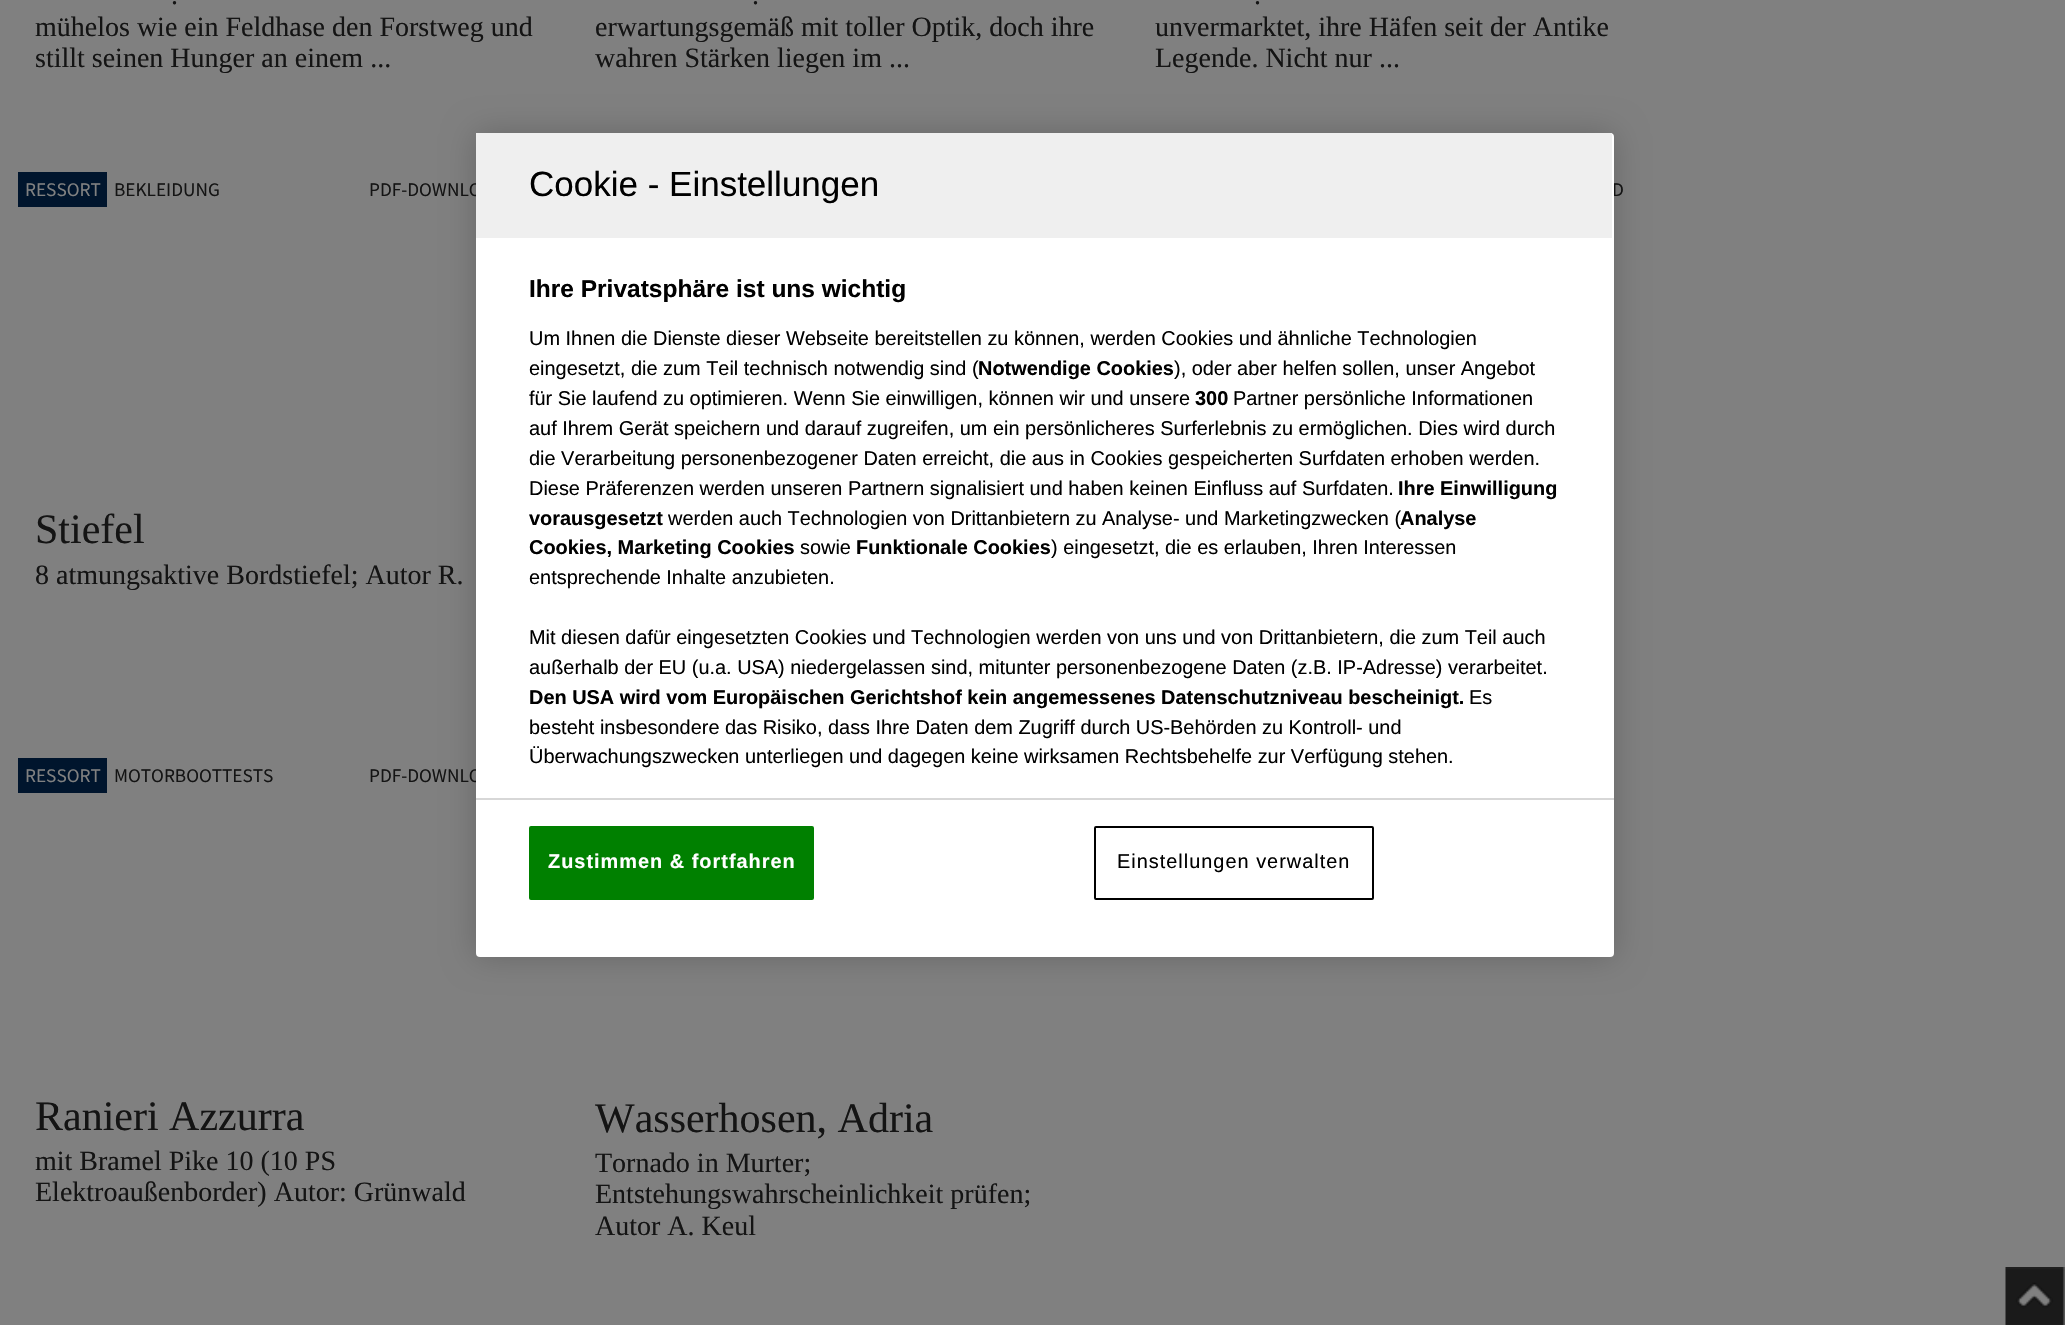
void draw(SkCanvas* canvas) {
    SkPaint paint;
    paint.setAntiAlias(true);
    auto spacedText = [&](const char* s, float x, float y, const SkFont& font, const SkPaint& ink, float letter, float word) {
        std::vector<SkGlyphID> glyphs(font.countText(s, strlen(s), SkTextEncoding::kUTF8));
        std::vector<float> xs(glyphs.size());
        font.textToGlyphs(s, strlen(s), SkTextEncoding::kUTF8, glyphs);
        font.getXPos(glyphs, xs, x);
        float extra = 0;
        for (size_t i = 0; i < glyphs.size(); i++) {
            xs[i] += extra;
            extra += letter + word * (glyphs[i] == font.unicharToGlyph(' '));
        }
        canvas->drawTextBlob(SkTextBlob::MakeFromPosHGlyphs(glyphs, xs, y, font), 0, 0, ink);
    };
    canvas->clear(0xFF808080);
    SkFont font1(fontMgr->matchFamilyStyle("Liberation Serif", SkFontStyle::Normal()), 28);
    font1.setSubpixel(true);
    paint.setColor(0xFF141414);
    canvas->drawString(".", 171, 4, font1, paint);
    canvas->drawString("mühelos wie ein Feldhase den Forstweg und", 35, 36, font1, paint);
    canvas->drawString("stillt seinen Hunger an einem ...", 35, 67, font1, paint);
    canvas->drawString(".", 752, 4, font1, paint);
    canvas->drawString("erwartungsgemäß mit toller Optik, doch ihre", 595, 36, font1, paint);
    canvas->drawString("wahren Stärken liegen im ...", 595, 67, font1, paint);
    canvas->drawString(".", 1254, 4, font1, paint);
    canvas->drawString("unvermarktet, ihre Häfen seit der Antike", 1155, 36, font1, paint);
    canvas->drawString("Legende. Nicht nur ...", 1155, 67, font1, paint);
    paint.setColor(0xFF00152D);
    canvas->drawRect(SkRect::MakeXYWH(18, 172, 89, 35), paint);
    SkFont font2(fontMgr->matchFamilyStyle("Source Sans Pro", SkFontStyle::Normal()), 19.25f);
    font2.setSubpixel(true);
    paint.setColor(0xFF808080);
    canvas->drawString("RESSORT", 25, 196, font2, paint);
    paint.setColor(0xFF141414);
    canvas->drawString("BEKLEIDUNG", 114, 196, font2, paint);
    canvas->drawString("PDF-DOWNLO", 369, 196, font2, paint);
    SkFont font3(fontMgr->matchFamilyStyle("Liberation Serif", SkFontStyle::Normal()), 42);
    font3.setSubpixel(true);
    canvas->drawString("Stiefel", 35, 543, font3, paint);
    canvas->drawString("8 atmungsaktive Bordstiefel; Autor R.", 35, 584, font1, paint);
    canvas->drawString("D", 1612, 196, font2, paint);
    paint.setColor(0xFF00152D);
    canvas->drawRect(SkRect::MakeXYWH(18, 758, 89, 35), paint);
    paint.setColor(0xFF808080);
    canvas->drawString("RESSORT", 25, 782, font2, paint);
    paint.setColor(0xFF141414);
    canvas->drawString("MOTORBOOTTESTS", 114, 782, font2, paint);
    canvas->drawString("PDF-DOWNLO", 369, 782, font2, paint);
    canvas->drawString("Ranieri Azzurra", 35, 1130, font3, paint);
    canvas->drawString("mit Bramel Pike 10 (10 PS", 35, 1170, font1, paint);
    canvas->drawString("Elektroaußenborder) Autor: Grünwald", 35, 1201, font1, paint);
    canvas->drawString("Wasserhosen, Adria", 595, 1132, font3, paint);
    canvas->drawString("Tornado in Murter;", 595, 1172, font1, paint);
    canvas->drawString("Entstehungswahrscheinlichkeit prüfen;", 595, 1203, font1, paint);
    canvas->drawString("Autor A. Keul", 595, 1235, font1, paint);
    canvas->drawImageRect(SkImages::DeferredFromEncodedData(SkData::MakeFromFileName("img1.png")), SkRect::MakeXYWH(2005, 1267, 60, 58), SkSamplingOptions());
    paint.setColor(0x33000000);
    paint.setMaskFilter(SkMaskFilter::MakeBlur(kNormal_SkBlurStyle, 16));
    canvas->drawRoundRect(SkRect::MakeXYWH(476, 133, 1138, 824), 4, 4, paint);
    paint.setMaskFilter(nullptr);
    paint.setColor(0xFFFFFFFF);
    canvas->drawRoundRect(SkRect::MakeXYWH(476, 133, 1138, 824), 4, 4, paint);
    paint.setColor(0xFFEFEFEF);
    canvas->drawRect(SkRect::MakeXYWH(476, 133, 1136, 105), paint);
    SkFont font4(fontMgr->matchFamilyStyle("Liberation Sans", SkFontStyle::Normal()), 35);
    font4.setSubpixel(true);
    paint.setColor(0xFF000000);
    canvas->drawString("Cookie - Einstellungen", 529, 196, font4, paint);
    SkFont font5(fontMgr->matchFamilyStyle("Liberation Sans", SkFontStyle::Bold()), 24.5f);
    font5.setSubpixel(true);
    canvas->drawString("Ihre Privatsphäre ist uns wichtig", 529, 297, font5, paint);
    SkFont font6(fontMgr->matchFamilyStyle("Liberation Sans", SkFontStyle::Normal()), 19.92f);
    font6.setSubpixel(true);
    canvas->drawString("Um Ihnen die Dienste dieser Webseite bereitstellen zu können, werden Cookies und ähnliche Technologien", 529, 345, font6, paint);
    canvas->drawString("eingesetzt, die zum Teil technisch notwendig sind (", 529, 375, font6, paint);
    SkFont font7(fontMgr->matchFamilyStyle("Liberation Sans", SkFontStyle::Bold()), 19.92f);
    font7.setSubpixel(true);
    canvas->drawString("Notwendige Cookies", 978, 375, font7, paint);
    canvas->drawString("), oder aber helfen sollen, unser Angebot", 1174, 375, font6, paint);
    canvas->drawString("für Sie laufend zu optimieren. Wenn Sie einwilligen, können wir und unsere", 529, 405, font6, paint);
    canvas->drawString("300", 1195, 405, font7, paint);
    canvas->drawString("Partner persönliche Informationen", 1233, 405, font6, paint);
    canvas->drawString("auf Ihrem Gerät speichern und darauf zugreifen, um ein persönlicheres Surferlebnis zu ermöglichen. Dies wird durch", 529, 435, font6, paint);
    canvas->drawString("die Verarbeitung personenbezogener Daten erreicht, die aus in Cookies gespeicherten Surfdaten erhoben werden.", 529, 465, font6, paint);
    canvas->drawString("Diese Präferenzen werden unseren Partnern signalisiert und haben keinen Einfluss auf Surfdaten.", 529, 495, font6, paint);
    canvas->drawString("Ihre Einwilligung", 1398, 495, font7, paint);
    canvas->drawString("vorausgesetzt", 529, 525, font7, paint);
    canvas->drawString("werden auch Technologien von Drittanbietern zu Analyse- und Marketingzwecken (", 668, 525, font6, paint);
    canvas->drawString("Analyse", 1400, 525, font7, paint);
    canvas->drawString("Cookies, Marketing Cookies", 529, 554, font7, paint);
    canvas->drawString("sowie", 800, 554, font6, paint);
    canvas->drawString("Funktionale Cookies", 856, 554, font7, paint);
    canvas->drawString(") eingesetzt, die es erlauben, Ihren Interessen", 1051, 554, font6, paint);
    canvas->drawString("entsprechende Inhalte anzubieten.", 529, 584, font6, paint);
    canvas->drawString("Mit diesen dafür eingesetzten Cookies und Technologien werden von uns und von Drittanbietern, die zum Teil auch", 529, 644, font6, paint);
    canvas->drawString("außerhalb der EU (u.a. USA) niedergelassen sind, mitunter personenbezogene Daten (z.B. IP-Adresse) verarbeitet.", 529, 674, font6, paint);
    canvas->drawString("Den USA wird vom Europäischen Gerichtshof kein angemessenes Datenschutzniveau bescheinigt.", 529, 704, font7, paint);
    canvas->drawString("Es", 1469, 704, font6, paint);
    canvas->drawString("besteht insbesondere das Risiko, dass Ihre Daten dem Zugriff durch US-Behörden zu Kontroll- und", 529, 734, font6, paint);
    canvas->drawString("Überwachungszwecken unterliegen und dagegen keine wirksamen Rechtsbehelfe zur Verfügung stehen.", 529, 763, font6, paint);
    paint.setColor(0xFFD7D7D7);
    canvas->drawRect(SkRect::MakeXYWH(476, 798, 1138, 2), paint);
    paint.setColor(0xFF008000);
    canvas->drawRoundRect(SkRect::MakeXYWH(530, 827, 283, 72), 1, 1, paint);
    paint.setStyle(SkPaint::kStroke_Style);
    paint.setStrokeWidth(2);
    canvas->drawRoundRect(SkRect::MakeXYWH(530, 827, 283, 72), 1, 1, paint);
    paint.setStyle(SkPaint::kFill_Style);
    paint.setColor(0xFFFFFFFF);
    spacedText("Zustimmen & fortfahren", 548, 868, font7, paint, 1, 0);
    paint.setStyle(SkPaint::kStroke_Style);
    paint.setColor(0xFF000000);
    canvas->drawRoundRect(SkRect::MakeXYWH(1095, 827, 278, 72), 1, 1, paint);
    paint.setStyle(SkPaint::kFill_Style);
    spacedText("Einstellungen verwalten", 1117, 868, font6, paint, 1, 0);
}
